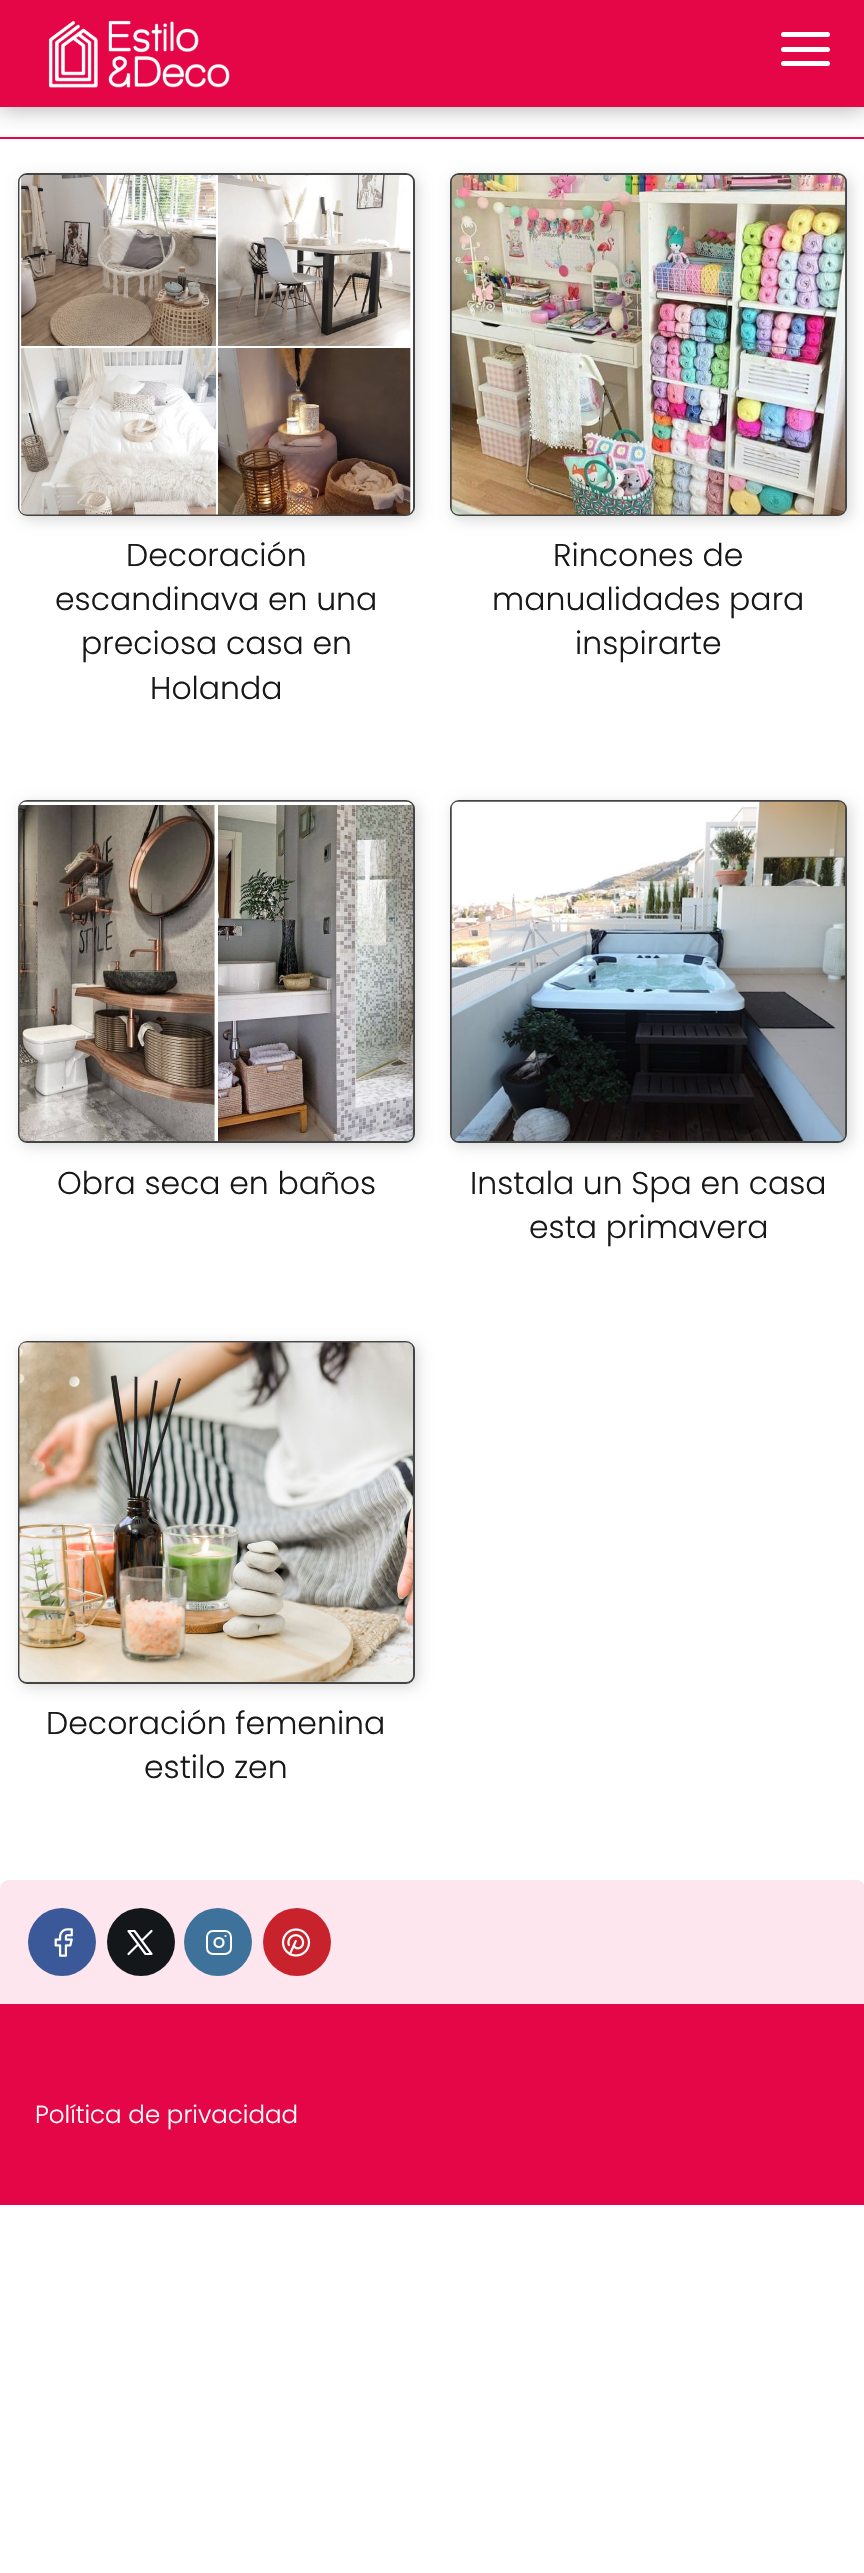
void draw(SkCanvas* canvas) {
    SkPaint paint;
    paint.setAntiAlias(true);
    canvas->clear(0xFFFFFFFF);
    paint.setColor(0xFFE40646);
    canvas->drawRect(SkRect::MakeXYWH(0, 137, 864, 2), paint);
    paint.setColor(0x4D000000);
    paint.setMaskFilter(SkMaskFilter::MakeBlur(kNormal_SkBlurStyle, 10.5f));
    canvas->drawRect(SkRect::MakeXYWH(0, 2, 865, 107), paint);
    paint.setMaskFilter(nullptr);
    paint.setColor(0xFFE40646);
    canvas->drawRect(SkRect::MakeXYWH(0, 0, 864, 107), paint);
    canvas->drawImageRect(SkImages::DeferredFromEncodedData(SkData::MakeFromFileName("img1.png")), SkRect::MakeXYWH(48, 20, 182, 68), SkSamplingOptions());
    paint.setColor(0xFFFFFFFF);
    canvas->drawRoundRect(SkRect::MakeXYWH(781, 32, 49, 5), 2.5f, 2.5f, paint);
    canvas->drawRoundRect(SkRect::MakeXYWH(781, 47, 49, 5), 2.5f, 2.5f, paint);
    canvas->drawRoundRect(SkRect::MakeXYWH(781, 61, 49, 5), 2.5f, 2.5f, paint);
    paint.setColor(0x26000000);
    paint.setMaskFilter(SkMaskFilter::MakeBlur(kNormal_SkBlurStyle, 7));
    canvas->drawRoundRect(SkRect::MakeXYWH(21, 177, 397, 343), 9, 9, paint);
    paint.setMaskFilter(nullptr);
    paint.setStyle(SkPaint::kStroke_Style);
    paint.setStrokeWidth(2);
    paint.setColor(0xFF444444);
    canvas->drawRoundRect(SkRect::MakeXYWH(19, 174, 395, 341), 8, 8, paint);
    canvas->drawImageRect(SkImages::DeferredFromEncodedData(SkData::MakeFromFileName("img2.png")), SkRect::MakeXYWH(19, 175, 394, 340), SkSamplingOptions());
    SkFont font1(fontMgr->matchFamilyStyle("Poppins", SkFontStyle(300, SkFontStyle::kNormal_Width, SkFontStyle::kUpright_Slant)), 31.5f);
    font1.setSubpixel(true);
    paint.setStyle(SkPaint::kFill_Style);
    paint.setColor(0xFF181818);
    canvas->drawString("Decoración", 126, 566, font1, paint);
    canvas->drawString("escandinava en una", 55, 610, font1, paint);
    canvas->drawString("preciosa casa en", 81, 654, font1, paint);
    canvas->drawString("Holanda", 150, 699, font1, paint);
    paint.setColor(0x26000000);
    paint.setMaskFilter(SkMaskFilter::MakeBlur(kNormal_SkBlurStyle, 7));
    canvas->drawRoundRect(SkRect::MakeXYWH(453, 177, 398, 343), 9, 9, paint);
    paint.setMaskFilter(nullptr);
    paint.setStyle(SkPaint::kStroke_Style);
    paint.setColor(0xFF444444);
    canvas->drawRoundRect(SkRect::MakeXYWH(451, 174, 395, 341), 8, 8, paint);
    canvas->drawImageRect(SkImages::DeferredFromEncodedData(SkData::MakeFromFileName("img3.png")), SkRect::MakeXYWH(451, 175, 395, 340), SkSamplingOptions());
    paint.setStyle(SkPaint::kFill_Style);
    paint.setColor(0xFF181818);
    canvas->drawString("Rincones de", 553, 566, font1, paint);
    canvas->drawString("manualidades para", 492, 610, font1, paint);
    canvas->drawString("inspirarte", 575, 654, font1, paint);
    paint.setColor(0x26000000);
    paint.setMaskFilter(SkMaskFilter::MakeBlur(kNormal_SkBlurStyle, 7));
    canvas->drawRoundRect(SkRect::MakeXYWH(21, 803, 397, 343), 9, 9, paint);
    paint.setMaskFilter(nullptr);
    paint.setStyle(SkPaint::kStroke_Style);
    paint.setColor(0xFF444444);
    canvas->drawRoundRect(SkRect::MakeXYWH(19, 801, 395, 341), 8, 8, paint);
    canvas->drawImageRect(SkImages::DeferredFromEncodedData(SkData::MakeFromFileName("img4.png")), SkRect::MakeXYWH(19, 801, 394, 340), SkSamplingOptions());
    paint.setStyle(SkPaint::kFill_Style);
    paint.setColor(0xFF181818);
    canvas->drawString("Obra seca en baños", 57, 1194, font1, paint);
    paint.setColor(0x26000000);
    paint.setMaskFilter(SkMaskFilter::MakeBlur(kNormal_SkBlurStyle, 7));
    canvas->drawRoundRect(SkRect::MakeXYWH(453, 803, 398, 343), 9, 9, paint);
    paint.setMaskFilter(nullptr);
    paint.setStyle(SkPaint::kStroke_Style);
    paint.setColor(0xFF444444);
    canvas->drawRoundRect(SkRect::MakeXYWH(451, 801, 395, 341), 8, 8, paint);
    canvas->drawImageRect(SkImages::DeferredFromEncodedData(SkData::MakeFromFileName("img5.png")), SkRect::MakeXYWH(451, 801, 395, 340), SkSamplingOptions());
    paint.setStyle(SkPaint::kFill_Style);
    paint.setColor(0xFF181818);
    canvas->drawString("Instala un Spa en casa", 470, 1194, font1, paint);
    canvas->drawString("esta primavera", 529, 1238, font1, paint);
    paint.setColor(0x26000000);
    paint.setMaskFilter(SkMaskFilter::MakeBlur(kNormal_SkBlurStyle, 7));
    canvas->drawRoundRect(SkRect::MakeXYWH(21, 1344, 397, 343), 9, 9, paint);
    paint.setMaskFilter(nullptr);
    paint.setStyle(SkPaint::kStroke_Style);
    paint.setColor(0xFF444444);
    canvas->drawRoundRect(SkRect::MakeXYWH(19, 1342, 395, 341), 8, 8, paint);
    canvas->drawImageRect(SkImages::DeferredFromEncodedData(SkData::MakeFromFileName("img6.png")), SkRect::MakeXYWH(19, 1342, 394, 340), SkSamplingOptions());
    paint.setStyle(SkPaint::kFill_Style);
    paint.setColor(0xFF181818);
    canvas->drawString("Decoración femenina", 46, 1734, font1, paint);
    canvas->drawString("estilo zen", 144, 1778, font1, paint);
    paint.setColor(0xFFFDE6ED);
    canvas->drawPath(SkPathBuilder().moveTo(9, 1880).lineTo(856, 1880).cubicTo(861, 1880, 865, 1884, 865, 1889).lineTo(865, 2004).lineTo(0, 2004).lineTo(0, 1889).cubicTo(0, 1884, 4, 1880, 9, 1880).close().detach(), paint);
    paint.setColor(0xFF3B5998);
    canvas->drawCircle(62, 1942, 34, paint);
    canvas->drawImageRect(SkImages::DeferredFromEncodedData(SkData::MakeFromFileName("img7.png")), SkRect::MakeXYWH(54, 1928, 19, 29), SkSamplingOptions());
    paint.setColor(0xFF14171A);
    canvas->drawCircle(141, 1942, 34, paint);
    paint.setStyle(SkPaint::kStroke_Style);
    paint.setStrokeWidth(2.2f);
    paint.setStrokeCap(SkPaint::kRound_Cap);
    paint.setStrokeJoin(SkPaint::kRound_Join);
    paint.setColor(0xFFFFFFFF);
    canvas->drawPath(SkPathBuilder().moveTo(128.5f, 1931).lineTo(145.5f, 1954).lineTo(151.5f, 1954).lineTo(134.5f, 1931).close().moveTo(128.5f, 1954).lineTo(138, 1944.5f).moveTo(142, 1940.5f).lineTo(151.5f, 1931).detach(), paint);
    paint.setStyle(SkPaint::kFill_Style);
    paint.setColor(0xFF3F729B);
    canvas->drawCircle(218, 1942, 34, paint);
    paint.setStyle(SkPaint::kStroke_Style);
    paint.setStrokeWidth(2);
    paint.setStrokeCap(SkPaint::kButt_Cap);
    paint.setStrokeJoin(SkPaint::kMiter_Join);
    paint.setColor(0xFFFFFFFF);
    canvas->drawRoundRect(SkRect::MakeXYWH(207, 1931, 24, 23), 6, 6, paint);
    paint.setStrokeWidth(2.2f);
    canvas->drawCircle(219, 1942.5f, 4.5f, paint);
    paint.setStrokeCap(SkPaint::kRound_Cap);
    paint.setStrokeJoin(SkPaint::kRound_Join);
    canvas->drawPath(SkPathBuilder().moveTo(225.5f, 1936).lineTo(225.5f, 1936).detach(), paint);
    paint.setStyle(SkPaint::kFill_Style);
    paint.setColor(0xFFC8232C);
    canvas->drawCircle(297, 1942, 34, paint);
    canvas->drawImageRect(SkImages::DeferredFromEncodedData(SkData::MakeFromFileName("img8.png")), SkRect::MakeXYWH(281, 1928, 30, 29), SkSamplingOptions());
    paint.setColor(0xFFE40646);
    canvas->drawRect(SkRect::MakeXYWH(0, 2004, 864, 201), paint);
    SkFont font2(fontMgr->matchFamilyStyle("Poppins", SkFontStyle(300, SkFontStyle::kNormal_Width, SkFontStyle::kUpright_Slant)), 24.5f);
    font2.setSubpixel(true);
    paint.setColor(0xFFFFFFFF);
    canvas->drawString("Política de privacidad", 35, 2123, font2, paint);
}
